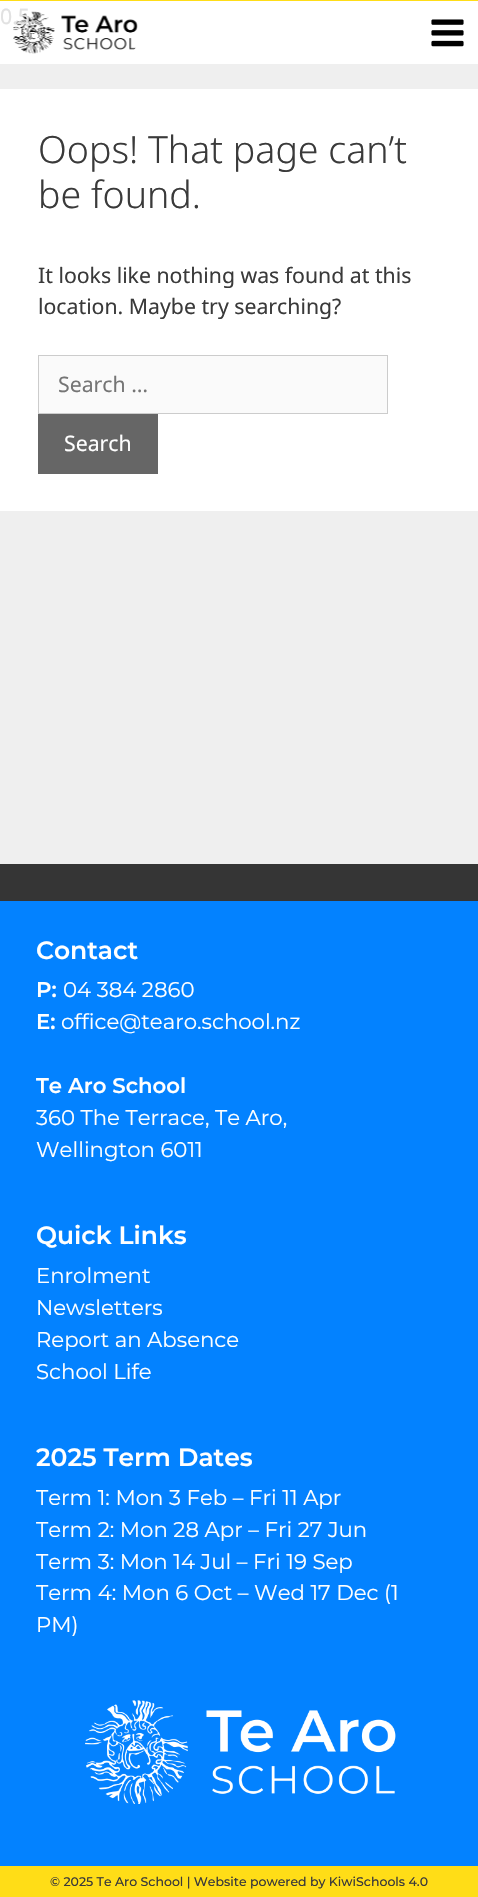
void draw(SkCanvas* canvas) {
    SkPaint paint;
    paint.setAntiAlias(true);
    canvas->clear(0xFFEFEFEF);
    paint.setColor(0xFFFFFFFF);
    canvas->drawRect(SkRect::MakeXYWH(0, 1, 478, 63), paint);
    canvas->drawImageRect(SkImages::DeferredFromEncodedData(SkData::MakeFromFileName("img1.png")), SkRect::MakeXYWH(13, 11, 125, 43), SkSamplingOptions());
    canvas->drawImageRect(SkImages::DeferredFromEncodedData(SkData::MakeFromFileName("img2.png")), SkRect::MakeXYWH(431, 19, 33, 28), SkSamplingOptions());
    paint.setColor(0xFFFFDD17);
    canvas->drawRect(SkRect::MakeXYWH(0, 0, 478, 1), paint);
    SkFont font1(fontMgr->matchFamilyStyle("Noto Sans", SkFontStyle::Normal()), 21.25f);
    font1.setSubpixel(true);
    paint.setColor(0xFFE1E1E1);
    canvas->drawString("0.5", 0, 24, font1, paint);
    paint.setColor(0xFFFFFFFF);
    canvas->drawRect(SkRect::MakeXYWH(0, 89, 478, 422), paint);
    SkFont font2(fontMgr->matchFamilyStyle("Noto Sans", SkFontStyle(300, SkFontStyle::kNormal_Width, SkFontStyle::kUpright_Slant)), 37.5f);
    font2.setSubpixel(true);
    paint.setColor(0xFF3A3A3A);
    canvas->drawString("Oops! That page can’t", 38, 163, font2, paint);
    canvas->drawString("be found.", 38, 208, font2, paint);
    canvas->drawString("It looks like nothing was found at this", 38, 283, font1, paint);
    canvas->drawString("location. Maybe try searching?", 38, 314, font1, paint);
    paint.setColor(0xFFFAFAFA);
    canvas->drawRect(SkRect::MakeXYWH(38.5f, 355.5f, 349, 58), paint);
    paint.setStyle(SkPaint::kStroke_Style);
    paint.setStrokeWidth(1);
    paint.setColor(0xFFCCCCCC);
    canvas->drawRect(SkRect::MakeXYWH(38.5f, 355.5f, 349, 58), paint);
    paint.setStyle(SkPaint::kFill_Style);
    paint.setColor(0xFF757575);
    canvas->drawString("Search …", 58, 392, font1, paint);
    paint.setColor(0xFF666666);
    canvas->drawRect(SkRect::MakeXYWH(38, 414, 120, 60), paint);
    paint.setColor(0xFFFFFFFF);
    canvas->drawString("Search", 64, 451, font1, paint);
    paint.setColor(0xFF353535);
    canvas->drawRect(SkRect::MakeXYWH(0, 864, 478, 37), paint);
    paint.setColor(0xFF0382FF);
    canvas->drawRect(SkRect::MakeXYWH(0, 901, 478, 965), paint);
    SkFont font3(fontMgr->matchFamilyStyle("Montserrat", SkFontStyle(600, SkFontStyle::kNormal_Width, SkFontStyle::kUpright_Slant)), 25);
    font3.setSubpixel(true);
    paint.setColor(0xFFFFFFFF);
    canvas->drawString("Contact", 36, 959, font3, paint);
    SkFont font4(fontMgr->matchFamilyStyle("Montserrat", SkFontStyle(600, SkFontStyle::kNormal_Width, SkFontStyle::kUpright_Slant)), 21.25f);
    font4.setSubpixel(true);
    canvas->drawString("P:", 36, 997, font4, paint);
    SkFont font5(fontMgr->matchFamilyStyle("Montserrat", SkFontStyle::Normal()), 21.25f);
    font5.setSubpixel(true);
    canvas->drawString("04 384 2860", 63, 997, font5, paint);
    canvas->drawString("E:", 36, 1029, font4, paint);
    canvas->drawString("office@tearo.school.nz", 61, 1029, font5, paint);
    canvas->drawString("Te Aro School", 36, 1093, font4, paint);
    canvas->drawString("360 The Terrace, Te Aro,", 36, 1125, font5, paint);
    canvas->drawString("Wellington 6011", 36, 1157, font5, paint);
    canvas->drawString("Quick Links", 36, 1244, font3, paint);
    canvas->drawString("Enrolment", 36, 1283, font5, paint);
    canvas->drawString("Newsletters", 36, 1315, font5, paint);
    canvas->drawString("Report an Absence", 36, 1347, font5, paint);
    canvas->drawString("School Life", 36, 1379, font5, paint);
    canvas->drawString("2025 Term Dates", 36, 1466, font3, paint);
    canvas->drawString("Term 1: Mon 3 Feb – Fri 11 Apr", 36, 1505, font5, paint);
    canvas->drawString("Term 2: Mon 28 Apr – Fri 27 Jun", 36, 1537, font5, paint);
    canvas->drawString("Term 3: Mon 14 Jul – Fri 19 Sep", 36, 1569, font5, paint);
    canvas->drawString("Term 4: Mon 6 Oct – Wed 17 Dec (1", 36, 1600, font5, paint);
    canvas->drawString("PM)", 36, 1632, font5, paint);
    canvas->drawImageRect(SkImages::DeferredFromEncodedData(SkData::MakeFromFileName("img3.png")), SkRect::MakeXYWH(85, 1700, 311, 104), SkSamplingOptions());
    paint.setColor(0xFFFFDD17);
    canvas->drawRect(SkRect::MakeXYWH(0, 1866, 478, 31), paint);
    SkFont font6(fontMgr->matchFamilyStyle("Montserrat", SkFontStyle(500, SkFontStyle::kNormal_Width, SkFontStyle::kUpright_Slant)), 12.5f);
    font6.setSubpixel(true);
    paint.setColor(0xFF3A3A3A);
    canvas->drawString("© 2025 Te Aro School | Website powered by KiwiSchools 4.0", 50, 1886, font6, paint);
}
